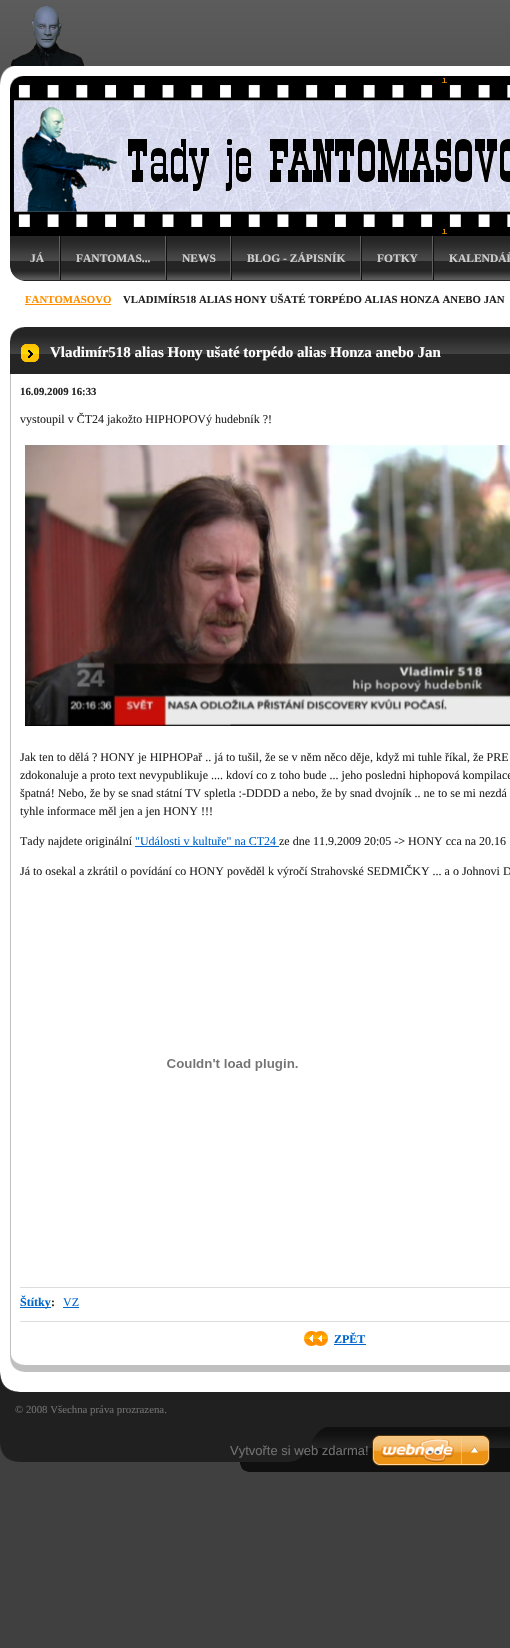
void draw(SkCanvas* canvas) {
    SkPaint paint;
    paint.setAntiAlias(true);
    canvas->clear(0xFF404040);
    canvas->drawImageRect(SkImages::DeferredFromEncodedData(SkData::MakeFromFileName("img1.png")), SkRect::MakeXYWH(0, 0, 510, 77), SkSamplingOptions());
    canvas->drawImageRect(SkImages::DeferredFromEncodedData(SkData::MakeFromFileName("img2.png")), SkRect::MakeXYWH(10, 6, 74, 60), SkSamplingOptions());
    canvas->drawImageRect(SkImages::DeferredFromEncodedData(SkData::MakeFromFileName("img3.png")), SkRect::MakeXYWH(0, 66, 510, 170), SkSamplingOptions());
    canvas->drawImageRect(SkImages::DeferredFromEncodedData(SkData::MakeFromFileName("img5.png")), SkRect::MakeXYWH(10, 76, 500, 160), SkSamplingOptions());
    canvas->drawImageRect(SkImages::DeferredFromEncodedData(SkData::MakeFromFileName("img4.png")), SkRect::MakeXYWH(0, 66, 23, 23), SkSamplingOptions());
    canvas->drawImageRect(SkImages::DeferredFromEncodedData(SkData::MakeFromFileName("img6.png")), SkRect::MakeXYWH(0, 236, 510, 45), SkSamplingOptions());
    paint.setColor(0xFF101010);
    canvas->drawRect(SkRect::MakeXYWH(60, 236, 1, 44), paint);
    paint.setColor(0xFF5F5F5F);
    canvas->drawRect(SkRect::MakeXYWH(59, 236, 1, 44), paint);
    SkFont font1(fontMgr->matchFamilyStyle("Liberation Serif", SkFontStyle::Bold()), 11.5f);
    font1.setSubpixel(true);
    paint.setColor(0xFFD0D0D0);
    canvas->drawString("JÁ", 30, 262, font1, paint);
    paint.setColor(0xFF101010);
    canvas->drawRect(SkRect::MakeXYWH(166, 236, 1, 44), paint);
    paint.setColor(0xFF5F5F5F);
    canvas->drawRect(SkRect::MakeXYWH(165, 236, 1, 44), paint);
    paint.setColor(0xFFD0D0D0);
    canvas->drawString("FANTOMAS...", 76, 262, font1, paint);
    paint.setColor(0xFF101010);
    canvas->drawRect(SkRect::MakeXYWH(231, 236, 1, 44), paint);
    paint.setColor(0xFF5F5F5F);
    canvas->drawRect(SkRect::MakeXYWH(230, 236, 1, 44), paint);
    paint.setColor(0xFFD0D0D0);
    canvas->drawString("NEWS", 182, 262, font1, paint);
    paint.setColor(0xFF101010);
    canvas->drawRect(SkRect::MakeXYWH(361, 236, 1, 44), paint);
    paint.setColor(0xFF5F5F5F);
    canvas->drawRect(SkRect::MakeXYWH(360, 236, 1, 44), paint);
    paint.setColor(0xFFD0D0D0);
    canvas->drawString("BLOG - ZÁPISNÍK", 247, 262, font1, paint);
    paint.setColor(0xFF101010);
    canvas->drawRect(SkRect::MakeXYWH(433, 236, 1, 44), paint);
    paint.setColor(0xFF5F5F5F);
    canvas->drawRect(SkRect::MakeXYWH(432, 236, 1, 44), paint);
    paint.setColor(0xFFD0D0D0);
    canvas->drawString("FOTKY", 377, 262, font1, paint);
    canvas->drawString("KALENDÁŘ", 449, 262, font1, paint);
    canvas->drawImageRect(SkImages::DeferredFromEncodedData(SkData::MakeFromFileName("img7.png")), SkRect::MakeXYWH(10, 267, 13, 14), SkSamplingOptions());
    paint.setColor(0xFFFFFFFF);
    canvas->drawRect(SkRect::MakeXYWH(0, 281, 510, 1111), paint);
    SkFont font2(fontMgr->matchFamilyStyle("Liberation Serif", SkFontStyle::Bold()), 10.8f);
    font2.setSubpixel(true);
    paint.setColor(0xFFFF8F00);
    canvas->drawString("FANTOMASOVO", 25, 303, font2, paint);
    canvas->drawRect(SkRect::MakeXYWH(25, 304, 86, 1), paint);
    paint.setColor(0xFF252525);
    canvas->drawString("VLADIMÍR518 ALIAS HONY UŠATÉ TORPÉDO ALIAS HONZA ANEBO JAN", 123, 303, font2, paint);
    canvas->drawImageRect(SkImages::DeferredFromEncodedData(SkData::MakeFromFileName("img8.png")), SkRect::MakeXYWH(0, 1372, 20, 20), SkSamplingOptions());
    canvas->drawImageRect(SkImages::DeferredFromEncodedData(SkData::MakeFromFileName("img9.png")), SkRect::MakeXYWH(10, 327, 500, 15), SkSamplingOptions());
    paint.setColor(0xFFC0C0C0);
    canvas->drawRect(SkRect::MakeXYWH(25, 1365, 485, 7), paint);
    canvas->drawRect(SkRect::MakeXYWH(10, 374, 1, 981), paint);
    canvas->drawImageRect(SkImages::DeferredFromEncodedData(SkData::MakeFromFileName("img10.png")), SkRect::MakeXYWH(10, 1355, 15, 17), SkSamplingOptions());
    paint.setColor(0xFF252525);
    canvas->drawRect(SkRect::MakeXYWH(10, 362, 500, 12), paint);
    canvas->drawImageRect(SkImages::DeferredFromEncodedData(SkData::MakeFromFileName("img11.png")), SkRect::MakeXYWH(10, 342, 500, 20), SkSamplingOptions());
    SkFont font3(fontMgr->matchFamilyStyle("Liberation Serif", SkFontStyle::Bold()), 15);
    font3.setSubpixel(true);
    paint.setColor(0xFFFFFFFF);
    canvas->drawString("Vladimír518 alias Hony ušaté torpédo alias Honza anebo Jan", 50, 357, font3, paint);
    paint.setColor(0xFF252525);
    canvas->drawString("16.09.2009 16:33", 20, 395, font2, paint);
    SkFont font4(fontMgr->matchFamilyStyle("Liberation Serif", SkFontStyle::Normal()), 12);
    font4.setSubpixel(true);
    canvas->drawString("vystoupil v ČT24 jakožto HIPHOPOVý hudebník ?!", 20, 423, font4, paint);
    canvas->drawImageRect(SkImages::DeferredFromEncodedData(SkData::MakeFromFileName("img12.png")), SkRect::MakeXYWH(25, 445, 485, 281), SkSamplingOptions());
    canvas->drawString("Jak ten to dělá ? HONY je HIPHOPař .. já to tušil, že se v něm něco děje, když mi tuhle říkal, že PRE", 20, 761, font4, paint);
    canvas->drawString("zdokonaluje a proto text nevypublikuje .... kdoví co z toho bude ... jeho posledni hiphopová kompilace", 20, 779, font4, paint);
    canvas->drawString("špatná! Nebo, že by se snad státní TV spletla :-DDDD a nebo, že by snad dvojník .. ne to se mi nezdá", 20, 797, font4, paint);
    canvas->drawString("tyhle informace měl jen a jen HONY !!!", 20, 815, font4, paint);
    canvas->drawString("Tady najdete originální", 20, 845, font4, paint);
    paint.setColor(0xFF0066CC);
    canvas->drawString("\"Události v kultuře\" na CT24", 135, 845, font4, paint);
    canvas->drawRect(SkRect::MakeXYWH(135, 846, 144, 1), paint);
    paint.setColor(0xFF252525);
    canvas->drawString("ze dne 11.9.2009 20:05 -> HONY cca na 20.16", 279, 845, font4, paint);
    canvas->drawString("Já to osekal a zkrátil o povídání co HONY pověděl k výročí Strahovské SEDMIČKY ... a o Johnovi D", 20, 875, font4, paint);
    canvas->drawImageRect(SkImages::DeferredFromEncodedData(SkData::MakeFromFileName("img13.png")), SkRect::MakeXYWH(167, 1059, 131, 12), SkSamplingOptions());
    paint.setColor(0xFFDDDDDD);
    canvas->drawRect(SkRect::MakeXYWH(20, 1287, 490, 1), paint);
    paint.setColor(0xFF0066CC);
    canvas->drawRect(SkRect::MakeXYWH(20, 1307, 31, 1), paint);
    SkFont font5(fontMgr->matchFamilyStyle("Liberation Serif", SkFontStyle::Bold()), 12);
    font5.setSubpixel(true);
    canvas->drawString("Štítky", 20, 1306, font5, paint);
    paint.setColor(0xFF252525);
    canvas->drawString(":", 51, 1306, font5, paint);
    paint.setColor(0xFF0066CC);
    canvas->drawString("VZ", 63, 1306, font4, paint);
    canvas->drawRect(SkRect::MakeXYWH(63, 1307, 16, 1), paint);
    paint.setColor(0xFFDDDDDD);
    canvas->drawRect(SkRect::MakeXYWH(20, 1321, 490, 1), paint);
    canvas->drawImageRect(SkImages::DeferredFromEncodedData(SkData::MakeFromFileName("img14.png")), SkRect::MakeXYWH(304, 1331, 24, 15), SkSamplingOptions());
    paint.setColor(0xFF0066CC);
    canvas->drawString("ZPĚT", 334, 1343, font5, paint);
    canvas->drawRect(SkRect::MakeXYWH(334, 1344, 32, 1), paint);
    paint.setColor(0xFF202020);
    canvas->drawRect(SkRect::MakeXYWH(0, 1392, 510, 35), paint);
    SkFont font6(fontMgr->matchFamilyStyle("Liberation Serif", SkFontStyle::Normal()), 10.8f);
    font6.setSubpixel(true);
    paint.setColor(0xFF707070);
    canvas->drawString("© 2008 Všechna práva prozrazena.", 15, 1413, font6, paint);
    canvas->drawImageRect(SkImages::DeferredFromEncodedData(SkData::MakeFromFileName("img15.png")), SkRect::MakeXYWH(0, 1427, 510, 45), SkSamplingOptions());
    SkFont font7(fontMgr->matchFamilyStyle("Liberation Sans", SkFontStyle::Normal()), 13);
    font7.setSubpixel(true);
    canvas->drawString("Vytvořte si web zdarma!", 230, 1455, font7, paint);
    canvas->drawImageRect(SkImages::DeferredFromEncodedData(SkData::MakeFromFileName("img16.png")), SkRect::MakeXYWH(372, 1435, 118, 31), SkSamplingOptions());
}
